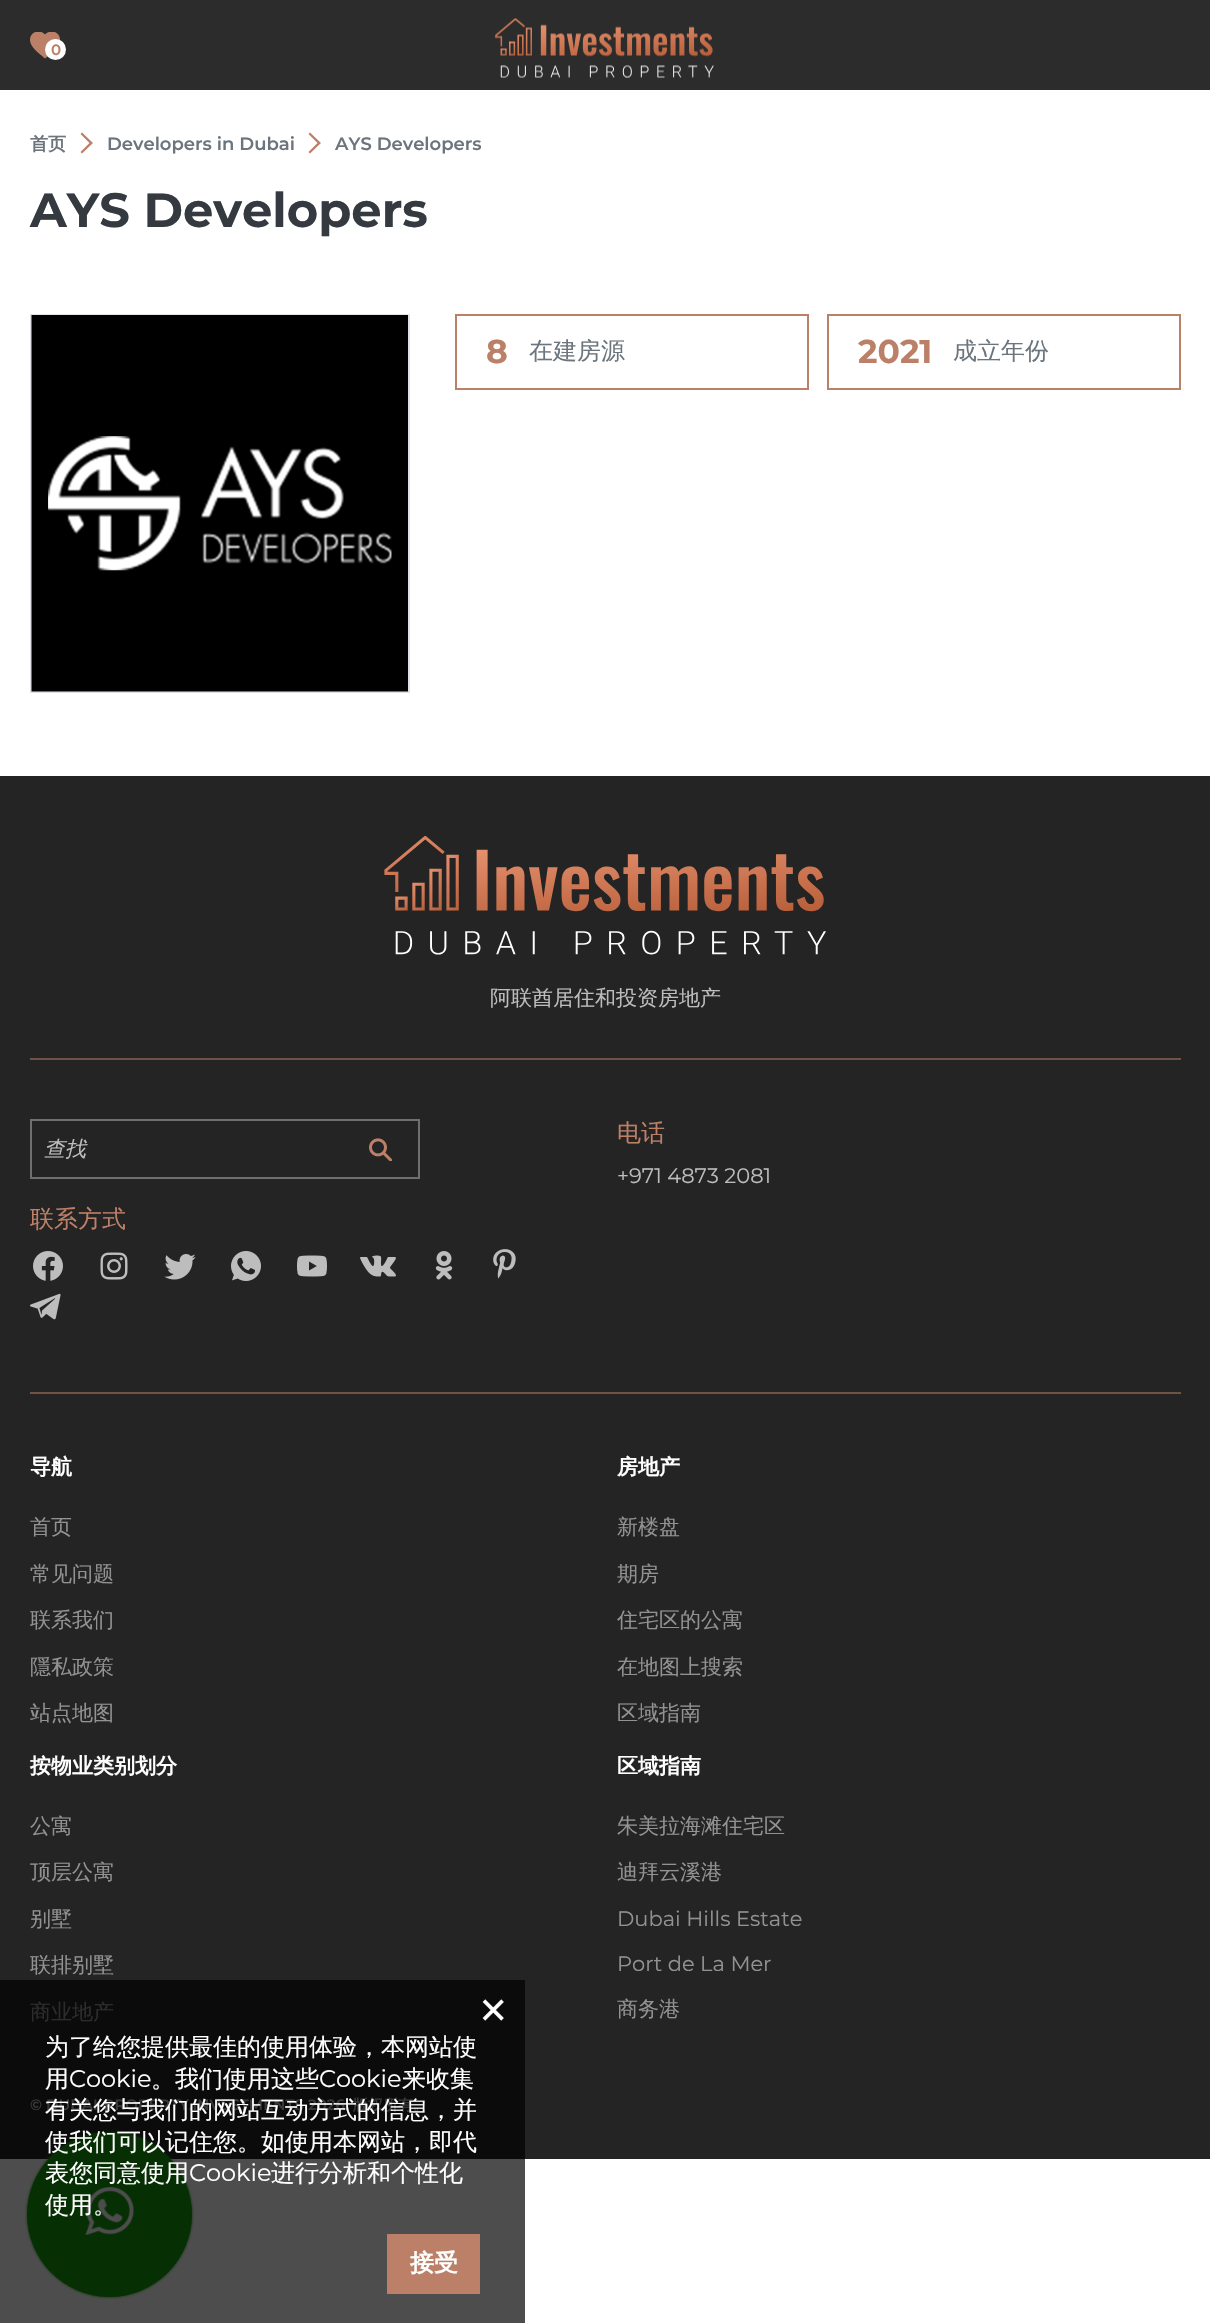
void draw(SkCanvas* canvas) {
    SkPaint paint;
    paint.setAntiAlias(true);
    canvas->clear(0xFFFFFFFF);
    paint.setColor(0xFF4D4D4D);
    canvas->drawRect(SkRect::MakeXYWH(0, 2159, 525, 164), paint);
    paint.setColor(0xFF2C2C2C);
    canvas->drawRect(SkRect::MakeXYWH(0, 0, 1210, 90), paint);
    canvas->drawImageRect(SkImages::DeferredFromEncodedData(SkData::MakeFromFileName("img1.png")), SkRect::MakeXYWH(30, 32, 30, 27), SkSamplingOptions());
    paint.setColor(0xFFFFFFFF);
    canvas->drawCircle(55.5f, 49.5f, 10.5f, paint);
    SkFont font1(fontMgr->matchFamilyStyle("Montserrat", SkFontStyle(600, SkFontStyle::kNormal_Width, SkFontStyle::kUpright_Slant)), 15);
    font1.setSubpixel(true);
    paint.setColor(0xFFBB8067);
    canvas->drawString("0", 51, 55, font1, paint);
    canvas->drawImageRect(SkImages::DeferredFromEncodedData(SkData::MakeFromFileName("img2.png")), SkRect::MakeXYWH(495, 18, 219, 60), SkSamplingOptions());
    SkFont font2(fontMgr->matchFamilyStyle("WenQuanYi Zen Hei", SkFontStyle::Bold()), 18);
    font2.setSubpixel(true);
    paint.setColor(0xFF6C757D);
    canvas->drawString("首页", 30, 150, font2, paint);
    paint.setColor(0xFFBB8067);
    canvas->drawPath(SkPathBuilder().moveTo(82, 153.5f).lineTo(93, 143).lineTo(82, 132.5f).lineTo(80.5f, 134).lineTo(89.5f, 143).lineTo(80.5f, 152).close().detach(), paint);
    SkFont font3(fontMgr->matchFamilyStyle("Montserrat", SkFontStyle(600, SkFontStyle::kNormal_Width, SkFontStyle::kUpright_Slant)), 18);
    font3.setSubpixel(true);
    paint.setColor(0xFF6C757D);
    canvas->drawString("Developers in Dubai", 107, 150, font3, paint);
    paint.setColor(0xFFBB8067);
    canvas->drawPath(SkPathBuilder().moveTo(310, 153.5f).lineTo(321, 143).lineTo(310, 132.5f).lineTo(308.5f, 134).lineTo(317.5f, 143).lineTo(308.5f, 152).close().detach(), paint);
    paint.setColor(0xFF6C757D);
    canvas->drawString("AYS Developers", 335, 150, font3, paint);
    SkFont font4(fontMgr->matchFamilyStyle("Montserrat", SkFontStyle::Bold()), 48);
    font4.setSubpixel(true);
    paint.setColor(0xFF343A40);
    canvas->drawString("AYS Developers", 30, 227, font4, paint);
    paint.setStyle(SkPaint::kStroke_Style);
    paint.setStrokeWidth(2);
    paint.setColor(0xFFDEE2E6);
    canvas->drawRect(SkRect::MakeXYWH(31, 315, 378, 377), paint);
    canvas->drawImageRect(SkImages::DeferredFromEncodedData(SkData::MakeFromFileName("img3.png")), SkRect::MakeXYWH(31, 315, 377, 377), SkSamplingOptions());
    paint.setColor(0xFFBB8067);
    canvas->drawRect(SkRect::MakeXYWH(456, 315, 352, 74), paint);
    SkFont font5(fontMgr->matchFamilyStyle("Montserrat", SkFontStyle::Bold()), 33);
    font5.setSubpixel(true);
    paint.setStyle(SkPaint::kFill_Style);
    canvas->drawString("8", 486, 363, font5, paint);
    SkFont font6(fontMgr->matchFamilyStyle("WenQuanYi Zen Hei", SkFontStyle(500, SkFontStyle::kNormal_Width, SkFontStyle::kUpright_Slant)), 24);
    font6.setSubpixel(true);
    paint.setColor(0xFF6C757D);
    canvas->drawString("在建房源", 529, 359, font6, paint);
    paint.setStyle(SkPaint::kStroke_Style);
    paint.setColor(0xFFBB8067);
    canvas->drawRect(SkRect::MakeXYWH(828, 315, 352, 74), paint);
    paint.setStyle(SkPaint::kFill_Style);
    canvas->drawString("2021", 858, 363, font5, paint);
    paint.setColor(0xFF6C757D);
    canvas->drawString("成立年份", 953, 359, font6, paint);
    paint.setColor(0xFF252424);
    canvas->drawRect(SkRect::MakeXYWH(0, 776, 1210, 1383), paint);
    paint.setColor(0xFF0B0B0B);
    canvas->drawRect(SkRect::MakeXYWH(0, 1980, 525, 179), paint);
    canvas->drawImageRect(SkImages::DeferredFromEncodedData(SkData::MakeFromFileName("img4.png")), SkRect::MakeXYWH(384, 836, 442, 119), SkSamplingOptions());
    SkFont font7(fontMgr->matchFamilyStyle("WenQuanYi Zen Hei", SkFontStyle(500, SkFontStyle::kNormal_Width, SkFontStyle::kUpright_Slant)), 21);
    font7.setSubpixel(true);
    paint.setColor(0xFFBEBDBD);
    canvas->drawString("阿联酋居住和投资房地产", 490, 1005, font7, paint);
    paint.setColor(0xFF705246);
    canvas->drawRect(SkRect::MakeXYWH(30, 1058, 1151, 2), paint);
    paint.setStyle(SkPaint::kStroke_Style);
    paint.setColor(0xFF706F6F);
    canvas->drawRect(SkRect::MakeXYWH(31, 1120, 388, 58), paint);
    SkFont font8(fontMgr->matchFamilyStyle("WenQuanYi Zen Hei", SkFontStyle(500, SkFontStyle::kNormal_Width, SkFontStyle::kItalic_Slant)), 21);
    font8.setSubpixel(true);
    paint.setStyle(SkPaint::kFill_Style);
    paint.setColor(0xFFBEBDBD);
    canvas->drawString("查找", 44, 1156, font8, paint);
    canvas->drawImageRect(SkImages::DeferredFromEncodedData(SkData::MakeFromFileName("img5.png")), SkRect::MakeXYWH(369, 1138, 23, 23), SkSamplingOptions());
    paint.setColor(0xFFBB8067);
    canvas->drawString("电话", 617, 1141, font6, paint);
    SkFont font9(fontMgr->matchFamilyStyle("Montserrat", SkFontStyle::Normal()), 21);
    font9.setSubpixel(true);
    paint.setColor(0xFFBEBDBD);
    canvas->drawString("+971 4873 2081", 617, 1183, font9, paint);
    paint.setColor(0xFFBB8067);
    canvas->drawString("联系方式", 30, 1227, font6, paint);
    canvas->drawImageRect(SkImages::DeferredFromEncodedData(SkData::MakeFromFileName("img6.png")), SkRect::MakeXYWH(33, 1251, 30, 30), SkSamplingOptions());
    canvas->drawImageRect(SkImages::DeferredFromEncodedData(SkData::MakeFromFileName("img7.png")), SkRect::MakeXYWH(100, 1252, 28, 28), SkSamplingOptions());
    canvas->drawImageRect(SkImages::DeferredFromEncodedData(SkData::MakeFromFileName("img8.png")), SkRect::MakeXYWH(164, 1254, 32, 26), SkSamplingOptions());
    canvas->drawImageRect(SkImages::DeferredFromEncodedData(SkData::MakeFromFileName("img9.png")), SkRect::MakeXYWH(231, 1251, 30, 30), SkSamplingOptions());
    canvas->drawImageRect(SkImages::DeferredFromEncodedData(SkData::MakeFromFileName("img10.png")), SkRect::MakeXYWH(297, 1255, 30, 22), SkSamplingOptions());
    canvas->drawImageRect(SkImages::DeferredFromEncodedData(SkData::MakeFromFileName("img11.png")), SkRect::MakeXYWH(360, 1255, 36, 22), SkSamplingOptions());
    canvas->drawImageRect(SkImages::DeferredFromEncodedData(SkData::MakeFromFileName("img12.png")), SkRect::MakeXYWH(435, 1251, 18, 29), SkSamplingOptions());
    canvas->drawImageRect(SkImages::DeferredFromEncodedData(SkData::MakeFromFileName("img13.png")), SkRect::MakeXYWH(493, 1249, 23, 30), SkSamplingOptions());
    canvas->drawImageRect(SkImages::DeferredFromEncodedData(SkData::MakeFromFileName("img14.png")), SkRect::MakeXYWH(30, 1293, 31, 27), SkSamplingOptions());
    paint.setColor(0xFF705246);
    canvas->drawRect(SkRect::MakeXYWH(30, 1392, 1151, 2), paint);
    SkFont font10(fontMgr->matchFamilyStyle("WenQuanYi Zen Hei", SkFontStyle::Bold()), 21);
    font10.setSubpixel(true);
    paint.setColor(0xFFFFFFFF);
    canvas->drawString("导航", 30, 1474, font10, paint);
    paint.setColor(0xFF929292);
    canvas->drawString("首页", 30, 1534, font7, paint);
    canvas->drawString("常见问题", 30, 1581, font7, paint);
    canvas->drawString("联系我们", 30, 1627, font7, paint);
    canvas->drawString("隱私政策", 30, 1674, font7, paint);
    canvas->drawString("站点地图", 30, 1720, font7, paint);
    paint.setColor(0xFFFFFFFF);
    canvas->drawString("房地产", 617, 1474, font10, paint);
    paint.setColor(0xFF929292);
    canvas->drawString("新楼盘", 617, 1534, font7, paint);
    canvas->drawString("期房", 617, 1581, font7, paint);
    canvas->drawString("住宅区的公寓", 617, 1627, font7, paint);
    canvas->drawString("在地图上搜索", 617, 1674, font7, paint);
    canvas->drawString("区域指南", 617, 1720, font7, paint);
    paint.setColor(0xFFFFFFFF);
    canvas->drawString("按物业类别划分", 30, 1773, font10, paint);
    paint.setColor(0xFF929292);
    canvas->drawString("公寓", 30, 1833, font7, paint);
    canvas->drawString("顶层公寓", 30, 1879, font7, paint);
    canvas->drawString("别墅", 30, 1926, font7, paint);
    canvas->drawString("联排别墅", 30, 1972, font7, paint);
    paint.setColor(0xFF2C2C2C);
    canvas->drawString("商业地产", 30, 2019, font7, paint);
    paint.setColor(0xFFFFFFFF);
    canvas->drawString("区域指南", 617, 1773, font10, paint);
    paint.setColor(0xFF929292);
    canvas->drawString("朱美拉海滩住宅区", 617, 1833, font7, paint);
    canvas->drawString("迪拜云溪港", 617, 1879, font7, paint);
    canvas->drawString("Dubai Hills Estate", 617, 1926, font9, paint);
    canvas->drawString("Port de La Mer", 617, 1971, font9, paint);
    canvas->drawString("商务港", 617, 2016, font7, paint);
    paint.setColor(0xFF393939);
    canvas->drawString("© DUBAI-PROPERTY.INVESTMENTS 2026.", 30, 2110, font1, paint);
    SkFont font11(fontMgr->matchFamilyStyle("WenQuanYi Zen Hei", SkFontStyle::Bold()), 15);
    font11.setSubpixel(true);
    canvas->drawString("版权所有。", 353, 2110, font11, paint);
    SkFont font12(fontMgr->matchFamilyStyle("Montserrat", SkFontStyle::Normal()), 60);
    font12.setSubpixel(true);
    paint.setColor(0xFFFFFFFF);
    canvas->drawString("×", 476, 2031, font12, paint);
    canvas->drawString("为了给您提供最佳的使用体验，本网站使", 45, 2055, font6, paint);
    canvas->drawString("用", 45, 2087, font6, paint);
    SkFont font13(fontMgr->matchFamilyStyle("Montserrat", SkFontStyle::Normal()), 24);
    font13.setSubpixel(true);
    canvas->drawString("Cookie", 69, 2087, font13, paint);
    canvas->drawString("。我们使用这些", 151, 2087, font6, paint);
    canvas->drawString("Cookie", 319, 2087, font13, paint);
    canvas->drawString("来收集", 402, 2087, font6, paint);
    canvas->drawString("有关您与我们的网站互动方式的信息，并", 45, 2118, font6, paint);
    paint.setColor(0xFF072F04);
    paint.setMaskFilter(SkMaskFilter::MakeBlur(kNormal_SkBlurStyle, 1.5f));
    canvas->drawRoundRect(SkRect::MakeXYWH(27, 2132, 165, 165), 82.5f, 82.5f, paint);
    paint.setMaskFilter(nullptr);
    canvas->drawCircle(109.5f, 2214.5f, 82.5f, paint);
    paint.setColor(0xFFFFFFFF);
    canvas->drawString("使我们可以记住您。如使用本网站，即代", 45, 2150, font6, paint);
    canvas->drawString("表您同意使用", 45, 2181, font6, paint);
    canvas->drawString("Cookie", 189, 2181, font13, paint);
    canvas->drawString("进行分析和个性化", 271, 2181, font6, paint);
    canvas->drawImageRect(SkImages::DeferredFromEncodedData(SkData::MakeFromFileName("img15.png")), SkRect::MakeXYWH(85, 2187, 49, 48), SkSamplingOptions());
    canvas->drawString("使用。", 45, 2213, font6, paint);
    paint.setColor(0xFFBB8067);
    canvas->drawRect(SkRect::MakeXYWH(387, 2234, 93, 60), paint);
    SkFont font14(fontMgr->matchFamilyStyle("WenQuanYi Zen Hei", SkFontStyle::Bold()), 24);
    font14.setSubpixel(true);
    paint.setColor(0xFFFFFFFF);
    canvas->drawString("接受", 410, 2271, font14, paint);
}
